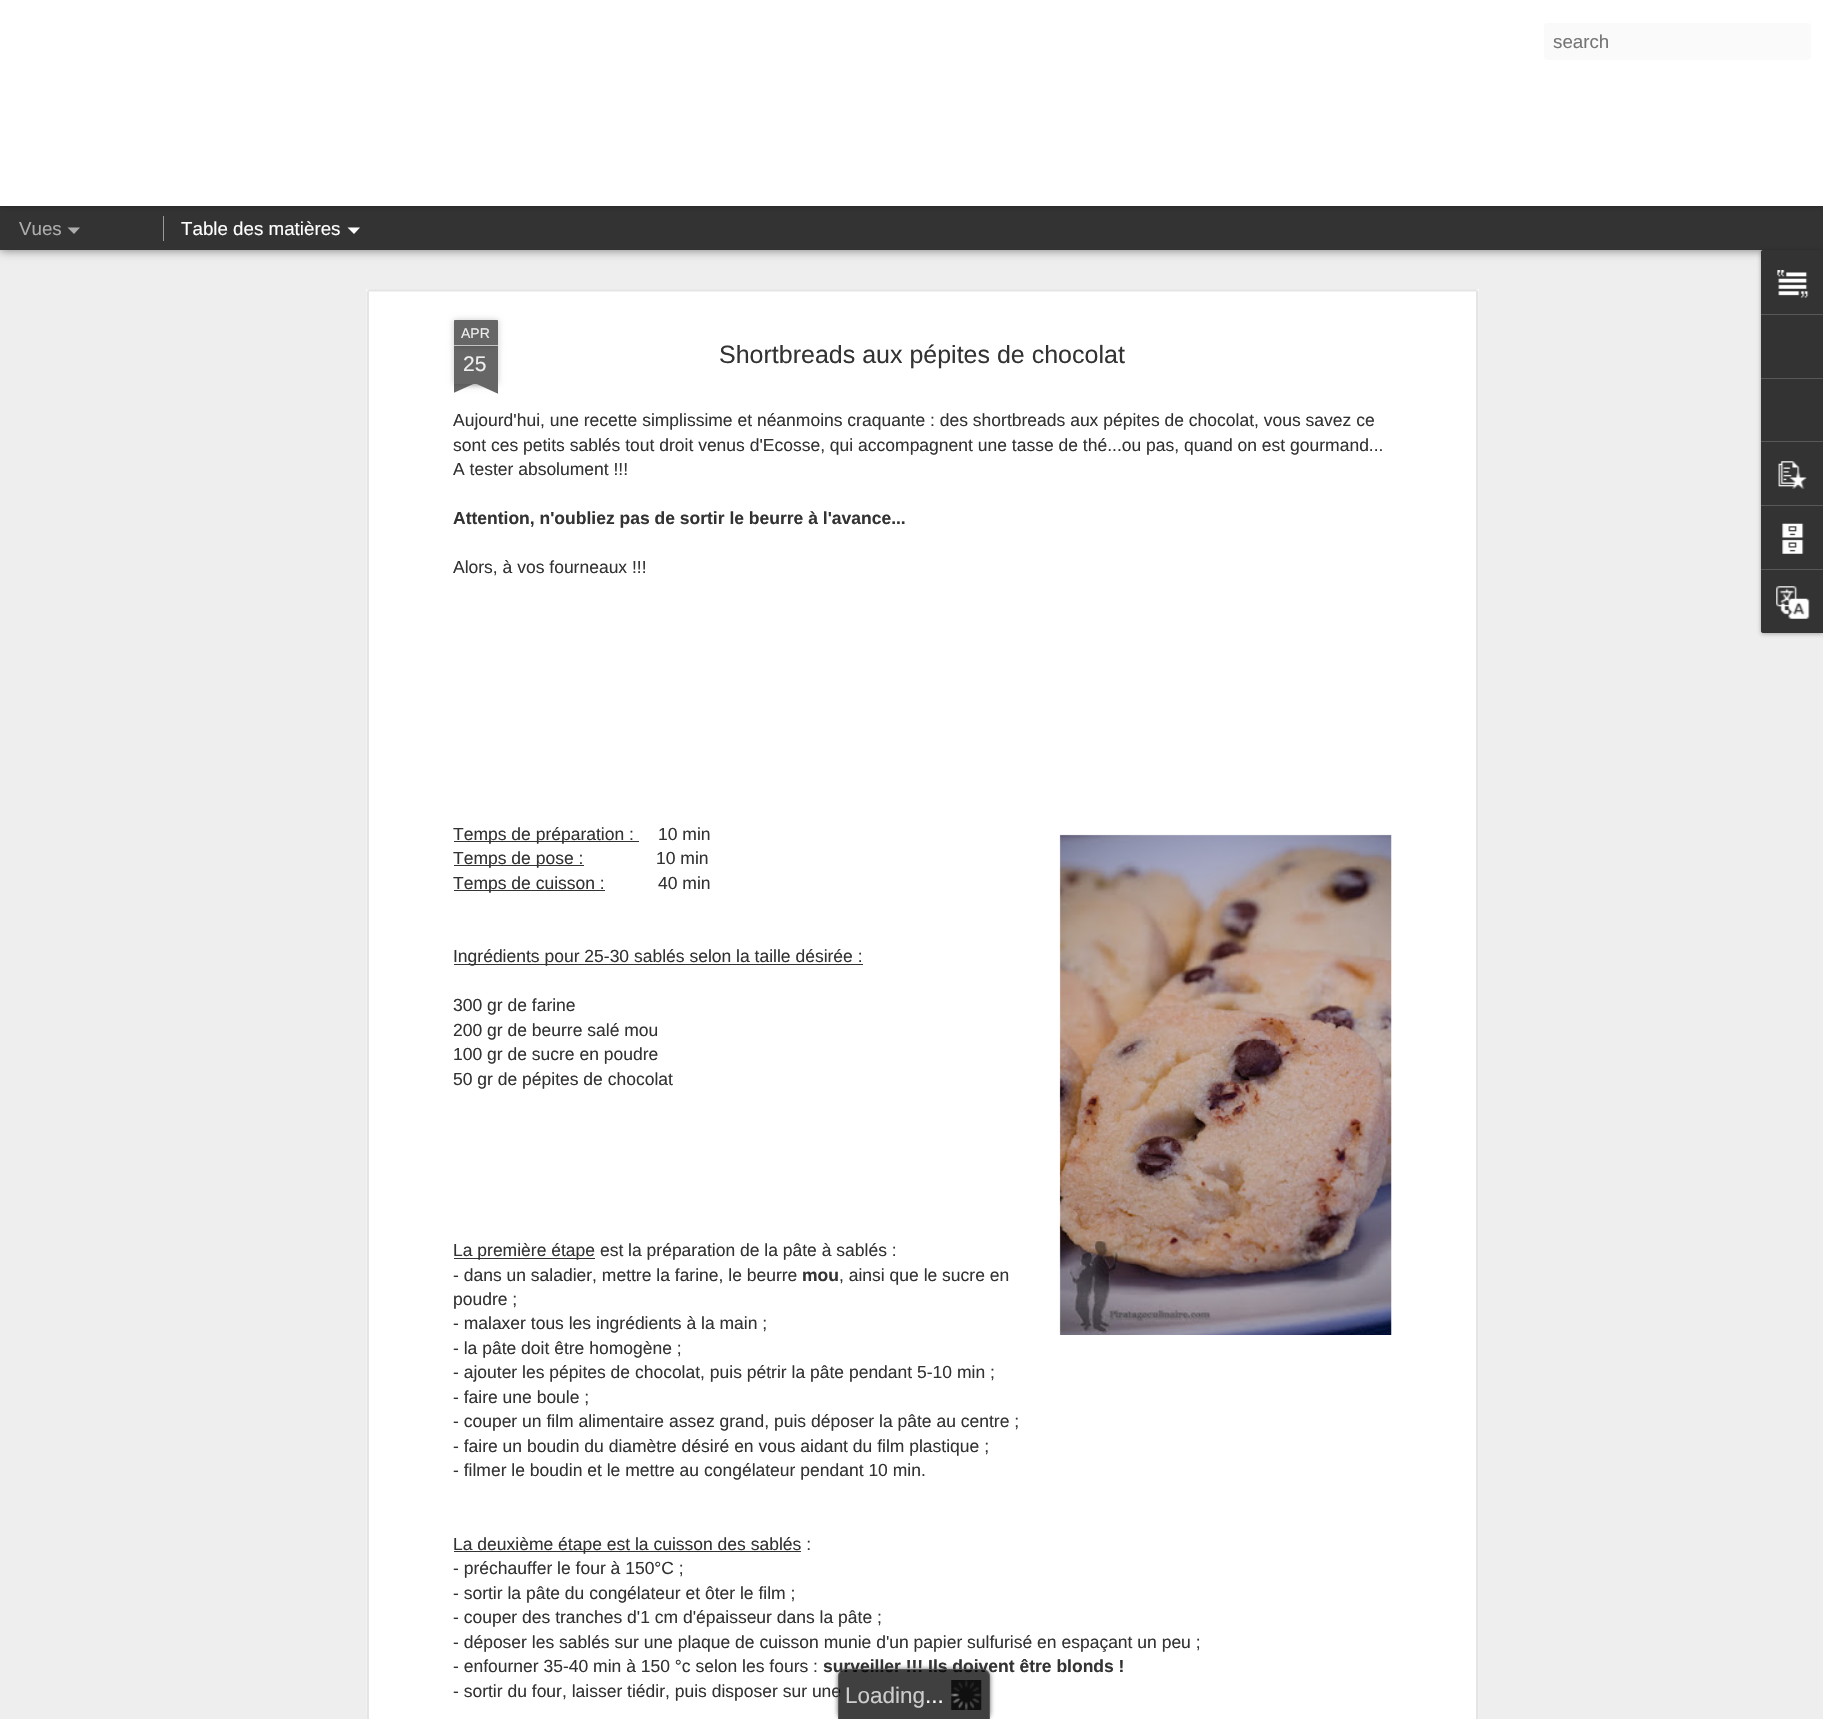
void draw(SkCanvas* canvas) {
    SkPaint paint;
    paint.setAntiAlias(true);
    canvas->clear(0xFFEEEEEE);
    paint.setColor(0x80000000);
    paint.setMaskFilter(SkMaskFilter::MakeBlur(kNormal_SkBlurStyle, 5));
    canvas->drawRect(SkRect::MakeXYWH(0, 206, 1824, 44), paint);
    paint.setMaskFilter(nullptr);
    paint.setColor(0xFF333333);
    canvas->drawRect(SkRect::MakeXYWH(0, 206, 1823, 44), paint);
    paint.setColor(0x4D000000);
    paint.setMaskFilter(SkMaskFilter::MakeBlur(kNormal_SkBlurStyle, 3));
    canvas->drawRect(SkRect::MakeXYWH(0, 0, 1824, 206), paint);
    paint.setMaskFilter(nullptr);
    paint.setColor(0xFFFFFFFF);
    canvas->drawRect(SkRect::MakeXYWH(0, 0, 1823, 206), paint);
    paint.setColor(0xFFFAFAFA);
    canvas->drawRoundRect(SkRect::MakeXYWH(1544, 23, 267, 37), 4, 4, paint);
    SkFont font1(fontMgr->matchFamilyStyle("Liberation Sans", SkFontStyle::Normal()), 18.75f);
    font1.setSubpixel(true);
    paint.setColor(0xFF757575);
    canvas->drawString("search", 1553, 48, font1, paint);
    paint.setColor(0xFFADADAD);
    canvas->drawString("Vues", 19, 235, font1, paint);
    canvas->drawPath(SkPathBuilder().moveTo(67.5f, 227.5f).lineTo(80, 227.5f).lineTo(74, 234).close().detach(), paint);
    paint.setColor(0xFF999999);
    canvas->drawRect(SkRect::MakeXYWH(163, 216, 1, 25), paint);
    paint.setColor(0xFFFFFFFF);
    canvas->drawString("Table des matières", 181, 235, font1, paint);
    canvas->drawPath(SkPathBuilder().moveTo(347.5f, 227.5f).lineTo(360, 227.5f).lineTo(354, 234).close().detach(), paint);
    canvas->drawRect(SkRect::MakeXYWH(366, 289, 1113, 1430), paint);
    canvas->drawImageRect(SkImages::DeferredFromEncodedData(SkData::MakeFromFileName("img1.png")), SkRect::MakeXYWH(366, 289, 1113, 1430), SkSamplingOptions());
    paint.setColor(0x33000000);
    paint.setMaskFilter(SkMaskFilter::MakeBlur(kNormal_SkBlurStyle, 3));
    canvas->drawRect(SkRect::MakeXYWH(454, 346, 44, 38), paint);
    paint.setMaskFilter(nullptr);
    paint.setColor(0xFF666666);
    canvas->drawRect(SkRect::MakeXYWH(454, 346, 44, 38), paint);
    paint.setColor(0x33000000);
    paint.setMaskFilter(SkMaskFilter::MakeBlur(kNormal_SkBlurStyle, 3));
    canvas->drawRoundRect(SkRect::MakeXYWH(454, 320, 44, 26), 1, 1, paint);
    paint.setMaskFilter(nullptr);
    paint.setColor(0xFF666666);
    canvas->drawPath(SkPathBuilder().moveTo(455, 320).lineTo(497, 320).cubicTo(497.5f, 320, 498, 320.5f, 498, 321).lineTo(498, 346).lineTo(454, 346).lineTo(454, 321).cubicTo(454, 320.5f, 454.5f, 320, 455, 320).close().detach(), paint);
    paint.setColor(0xFFC2C2C2);
    canvas->drawRect(SkRect::MakeXYWH(454, 345, 44, 1), paint);
    SkFont font2(fontMgr->matchFamilyStyle("Liberation Sans", SkFontStyle::Normal()), 14);
    font2.setSubpixel(true);
    paint.setColor(0xFFEEEEEE);
    canvas->drawString("APR", 461, 338, font2, paint);
    SkFont font3(fontMgr->matchFamilyStyle("Liberation Sans", SkFontStyle::Normal()), 21);
    font3.setSubpixel(true);
    canvas->drawString("25", 463, 371, font3, paint);
    canvas->save();
    canvas->clipRect(SkRect::MakeXYWH(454, 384, 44, 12));
    paint.setColor(0x33000000);
    paint.setMaskFilter(SkMaskFilter::MakeBlur(kNormal_SkBlurStyle, 3));
    canvas->drawRect(SkRect::MakeXYWH(443, 371, 62, 13), paint);
    paint.setMaskFilter(nullptr);
    canvas->restore();
    canvas->save();
    canvas->clipRect(SkRect::MakeXYWH(454, 384, 44, 12));
    paint.setColor(0xFF666666);
    canvas->drawPath(SkPathBuilder().moveTo(442, 385).lineTo(499, 359).lineTo(504, 370).lineTo(447, 396).close().detach(), paint);
    canvas->restore();
    canvas->save();
    canvas->clipRect(SkRect::MakeXYWH(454, 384, 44, 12));
    paint.setColor(0x33000000);
    paint.setMaskFilter(SkMaskFilter::MakeBlur(kNormal_SkBlurStyle, 3));
    canvas->drawRect(SkRect::MakeXYWH(446, 371, 63, 13), paint);
    paint.setMaskFilter(nullptr);
    canvas->restore();
    canvas->save();
    canvas->clipRect(SkRect::MakeXYWH(454, 384, 44, 12));
    paint.setColor(0xFF666666);
    canvas->drawPath(SkPathBuilder().moveTo(451, 359).lineTo(508, 385).lineTo(503, 396).lineTo(446, 370).close().detach(), paint);
    canvas->restore();
    SkFont font4(fontMgr->matchFamilyStyle("Liberation Sans", SkFontStyle::Normal()), 25);
    font4.setSubpixel(true);
    paint.setColor(0xFF333333);
    canvas->drawString("Shortbreads aux pépites de chocolat", 719, 363, font4, paint);
    SkFont font5(fontMgr->matchFamilyStyle("Liberation Sans", SkFontStyle::Normal()), 17.5f);
    font5.setSubpixel(true);
    canvas->drawString("Aujourd'hui, une recette simplissime et néanmoins craquante : des shortbreads aux pépites de chocolat, vous savez ce", 453, 426, font5, paint);
    canvas->drawString("sont ces petits sablés tout droit venus d'Ecosse, qui accompagnent une tasse de thé...ou pas, quand on est gourmand...", 453, 451, font5, paint);
    canvas->drawString("A tester absolument !!!", 453, 475, font5, paint);
    SkFont font6(fontMgr->matchFamilyStyle("Liberation Sans", SkFontStyle::Bold()), 17.5f);
    font6.setSubpixel(true);
    canvas->drawString("Attention, n'oubliez pas de sortir le beurre à l'avance...", 453, 524, font6, paint);
    canvas->drawString("Alors, à vos fourneaux !!!", 453, 573, font5, paint);
    canvas->drawRect(SkRect::MakeXYWH(454, 841, 185, 1), paint);
    canvas->drawString("Temps de préparation :", 453, 840, font5, paint);
    canvas->drawString("10 min", 658, 840, font5, paint);
    canvas->drawImageRect(SkImages::DeferredFromEncodedData(SkData::MakeFromFileName("img2.png")), SkRect::MakeXYWH(1059, 834, 333, 501), SkSamplingOptions());
    canvas->drawRect(SkRect::MakeXYWH(454, 865, 130, 1), paint);
    canvas->drawString("Temps de pose :", 453, 864, font5, paint);
    canvas->drawString("10 min", 656, 864, font5, paint);
    canvas->drawRect(SkRect::MakeXYWH(454, 890, 151, 1), paint);
    canvas->drawString("Temps de cuisson :", 453, 889, font5, paint);
    canvas->drawString("40 min", 658, 889, font5, paint);
    canvas->drawRect(SkRect::MakeXYWH(454, 964, 409, 1), paint);
    canvas->drawString("Ingrédients pour 25-30 sablés selon la taille désirée :", 453, 962, font5, paint);
    canvas->drawString("300 gr de farine", 453, 1011, font5, paint);
    canvas->drawString("200 gr de beurre salé mou", 453, 1036, font5, paint);
    canvas->drawString("100 gr de sucre en poudre", 453, 1060, font5, paint);
    canvas->drawString("50 gr de pépites de chocolat", 453, 1085, font5, paint);
    canvas->drawRect(SkRect::MakeXYWH(454, 1258, 141, 1), paint);
    canvas->drawString("La première étape est la préparation de la pâte à sablés :", 453, 1256, font5, paint);
    canvas->drawString("- dans un saladier, mettre la farine, le beurre", 453, 1281, font5, paint);
    canvas->drawString("mou", 802, 1281, font6, paint);
    canvas->drawString(", ainsi que le sucre en", 839, 1281, font5, paint);
    canvas->drawString("poudre ;", 453, 1305, font5, paint);
    canvas->drawString("- malaxer tous les ingrédients à la main ;", 453, 1329, font5, paint);
    canvas->drawString("- la pâte doit être homogène ;", 453, 1354, font5, paint);
    canvas->drawString("- ajouter les pépites de chocolat, puis pétrir la pâte pendant 5-10 min ;", 453, 1378, font5, paint);
    canvas->drawString("- faire une boule ;", 453, 1403, font5, paint);
    canvas->drawString("- couper un film alimentaire assez grand, puis déposer la pâte au centre ;", 453, 1427, font5, paint);
    canvas->drawString("- faire un boudin du diamètre désiré en vous aidant du film plastique ;", 453, 1452, font5, paint);
    canvas->drawString("- filmer le boudin et le mettre au congélateur pendant 10 min.", 453, 1476, font5, paint);
    canvas->drawRect(SkRect::MakeXYWH(454, 1551, 347, 1), paint);
    canvas->drawString("La deuxième étape est la cuisson des sablés :", 453, 1550, font5, paint);
    canvas->drawString("- préchauffer le four à 150°C ;", 453, 1574, font5, paint);
    canvas->drawString("- sortir la pâte du congélateur et ôter le film ;", 453, 1599, font5, paint);
    canvas->drawString("- couper des tranches d'1 cm d'épaisseur dans la pâte ;", 453, 1623, font5, paint);
    canvas->drawString("- déposer les sablés sur une plaque de cuisson munie d'un papier sulfurisé en espaçant un peu ;", 453, 1648, font5, paint);
    canvas->drawString("- enfourner 35-40 min à 150 °c selon les fours :", 453, 1672, font5, paint);
    canvas->drawString("surveiller !!! Ils doivent être blonds !", 823, 1672, font6, paint);
    canvas->drawString("- sortir du four, laisser tiédir, puis disposer sur une", 453, 1697, font5, paint);
    paint.setColor(0x4D000000);
    paint.setMaskFilter(SkMaskFilter::MakeBlur(kNormal_SkBlurStyle, 2));
    canvas->drawRoundRect(SkRect::MakeXYWH(1761, 251, 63, 383), 2.5f, 2.5f, paint);
    paint.setMaskFilter(nullptr);
    paint.setColor(0xFF333333);
    canvas->drawPath(SkPathBuilder().moveTo(1763.5f, 250).lineTo(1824, 250).lineTo(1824, 633).lineTo(1763.5f, 633).cubicTo(1762, 633, 1761, 632, 1761, 630.5f).lineTo(1761, 252.5f).cubicTo(1761, 251, 1762, 250, 1763.5f, 250).close().detach(), paint);
    canvas->drawPath(SkPathBuilder().moveTo(1763.5f, 250).lineTo(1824, 250).lineTo(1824, 314).lineTo(1761, 314).lineTo(1761, 252.5f).cubicTo(1761, 251, 1762, 250, 1763.5f, 250).close().detach(), paint);
    canvas->drawImageRect(SkImages::DeferredFromEncodedData(SkData::MakeFromFileName("img3.png")), SkRect::MakeXYWH(1777, 270, 32, 28), SkSamplingOptions());
    paint.setColor(0xFF585858);
    canvas->drawRect(SkRect::MakeXYWH(1761, 314, 62, 1), paint);
    canvas->drawRect(SkRect::MakeXYWH(1761, 378, 62, 1), paint);
    canvas->drawRect(SkRect::MakeXYWH(1761, 441, 62, 1), paint);
    canvas->drawImageRect(SkImages::DeferredFromEncodedData(SkData::MakeFromFileName("img4.png")), SkRect::MakeXYWH(1778, 461, 29, 28), SkSamplingOptions());
    canvas->drawRect(SkRect::MakeXYWH(1761, 505, 62, 1), paint);
    canvas->drawImageRect(SkImages::DeferredFromEncodedData(SkData::MakeFromFileName("img5.png")), SkRect::MakeXYWH(1782, 523, 22, 31), SkSamplingOptions());
    paint.setColor(0xFF333333);
    canvas->drawPath(SkPathBuilder().moveTo(1761, 569).lineTo(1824, 569).lineTo(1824, 633).lineTo(1763.5f, 633).cubicTo(1762, 633, 1761, 632, 1761, 630.5f).close().detach(), paint);
    paint.setColor(0xFF585858);
    canvas->drawRect(SkRect::MakeXYWH(1761, 569, 62, 1), paint);
    canvas->drawImageRect(SkImages::DeferredFromEncodedData(SkData::MakeFromFileName("img6.png")), SkRect::MakeXYWH(1776, 586, 34, 33), SkSamplingOptions());
    canvas->save();
    canvas->clipPath(SkPathBuilder(SkPathFillType::kEvenOdd).moveTo(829, 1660).lineTo(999, 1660).lineTo(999, 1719).lineTo(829, 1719).close().moveTo(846, 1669).lineTo(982, 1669).cubicTo(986.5f, 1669, 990, 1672.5f, 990, 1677).lineTo(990, 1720).lineTo(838, 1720).lineTo(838, 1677).cubicTo(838, 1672.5f, 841.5f, 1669, 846, 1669).close().detach(), true);
    paint.setColor(0xBF333333);
    paint.setMaskFilter(SkMaskFilter::MakeBlur(kNormal_SkBlurStyle, 2.5f));
    canvas->drawRoundRect(SkRect::MakeXYWH(838, 1669, 152, 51), 8, 8, paint);
    paint.setMaskFilter(nullptr);
    canvas->restore();
    paint.setColor(0xBF000000);
    canvas->drawPath(SkPathBuilder().moveTo(846, 1669).lineTo(982, 1669).cubicTo(986.5f, 1669, 990, 1672.5f, 990, 1677).lineTo(990, 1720).lineTo(838, 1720).lineTo(838, 1677).cubicTo(838, 1672.5f, 841.5f, 1669, 846, 1669).close().detach(), paint);
    paint.setColor(0xBF666666);
    canvas->drawPath(SkPathBuilder(SkPathFillType::kEvenOdd).moveTo(845, 1669).lineTo(982, 1669).cubicTo(987, 1669, 990, 1672, 990, 1676).lineTo(990, 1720).lineTo(838, 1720).lineTo(838, 1676).cubicTo(838, 1672, 841, 1669, 845, 1669).close().moveTo(845, 1670).lineTo(982, 1670).cubicTo(986, 1670, 989, 1673, 989, 1676).lineTo(989, 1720).lineTo(839, 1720).lineTo(839, 1676).cubicTo(839, 1673, 842, 1670, 845, 1670).close().detach(), paint);
    canvas->drawImageRect(SkImages::DeferredFromEncodedData(SkData::MakeFromFileName("img7.png")), SkRect::MakeXYWH(951, 1680, 31, 30), SkSamplingOptions());
    SkFont font7(fontMgr->matchFamilyStyle("Liberation Sans", SkFontStyle::Normal()), 22.5f);
    font7.setSubpixel(true);
    paint.setColor(0xFFCDCDCD);
    canvas->drawString("Loading", 845, 1703, font7, paint);
    paint.setColor(0xFFFFFFFF);
    canvas->drawString("...", 925, 1703, font7, paint);
}
